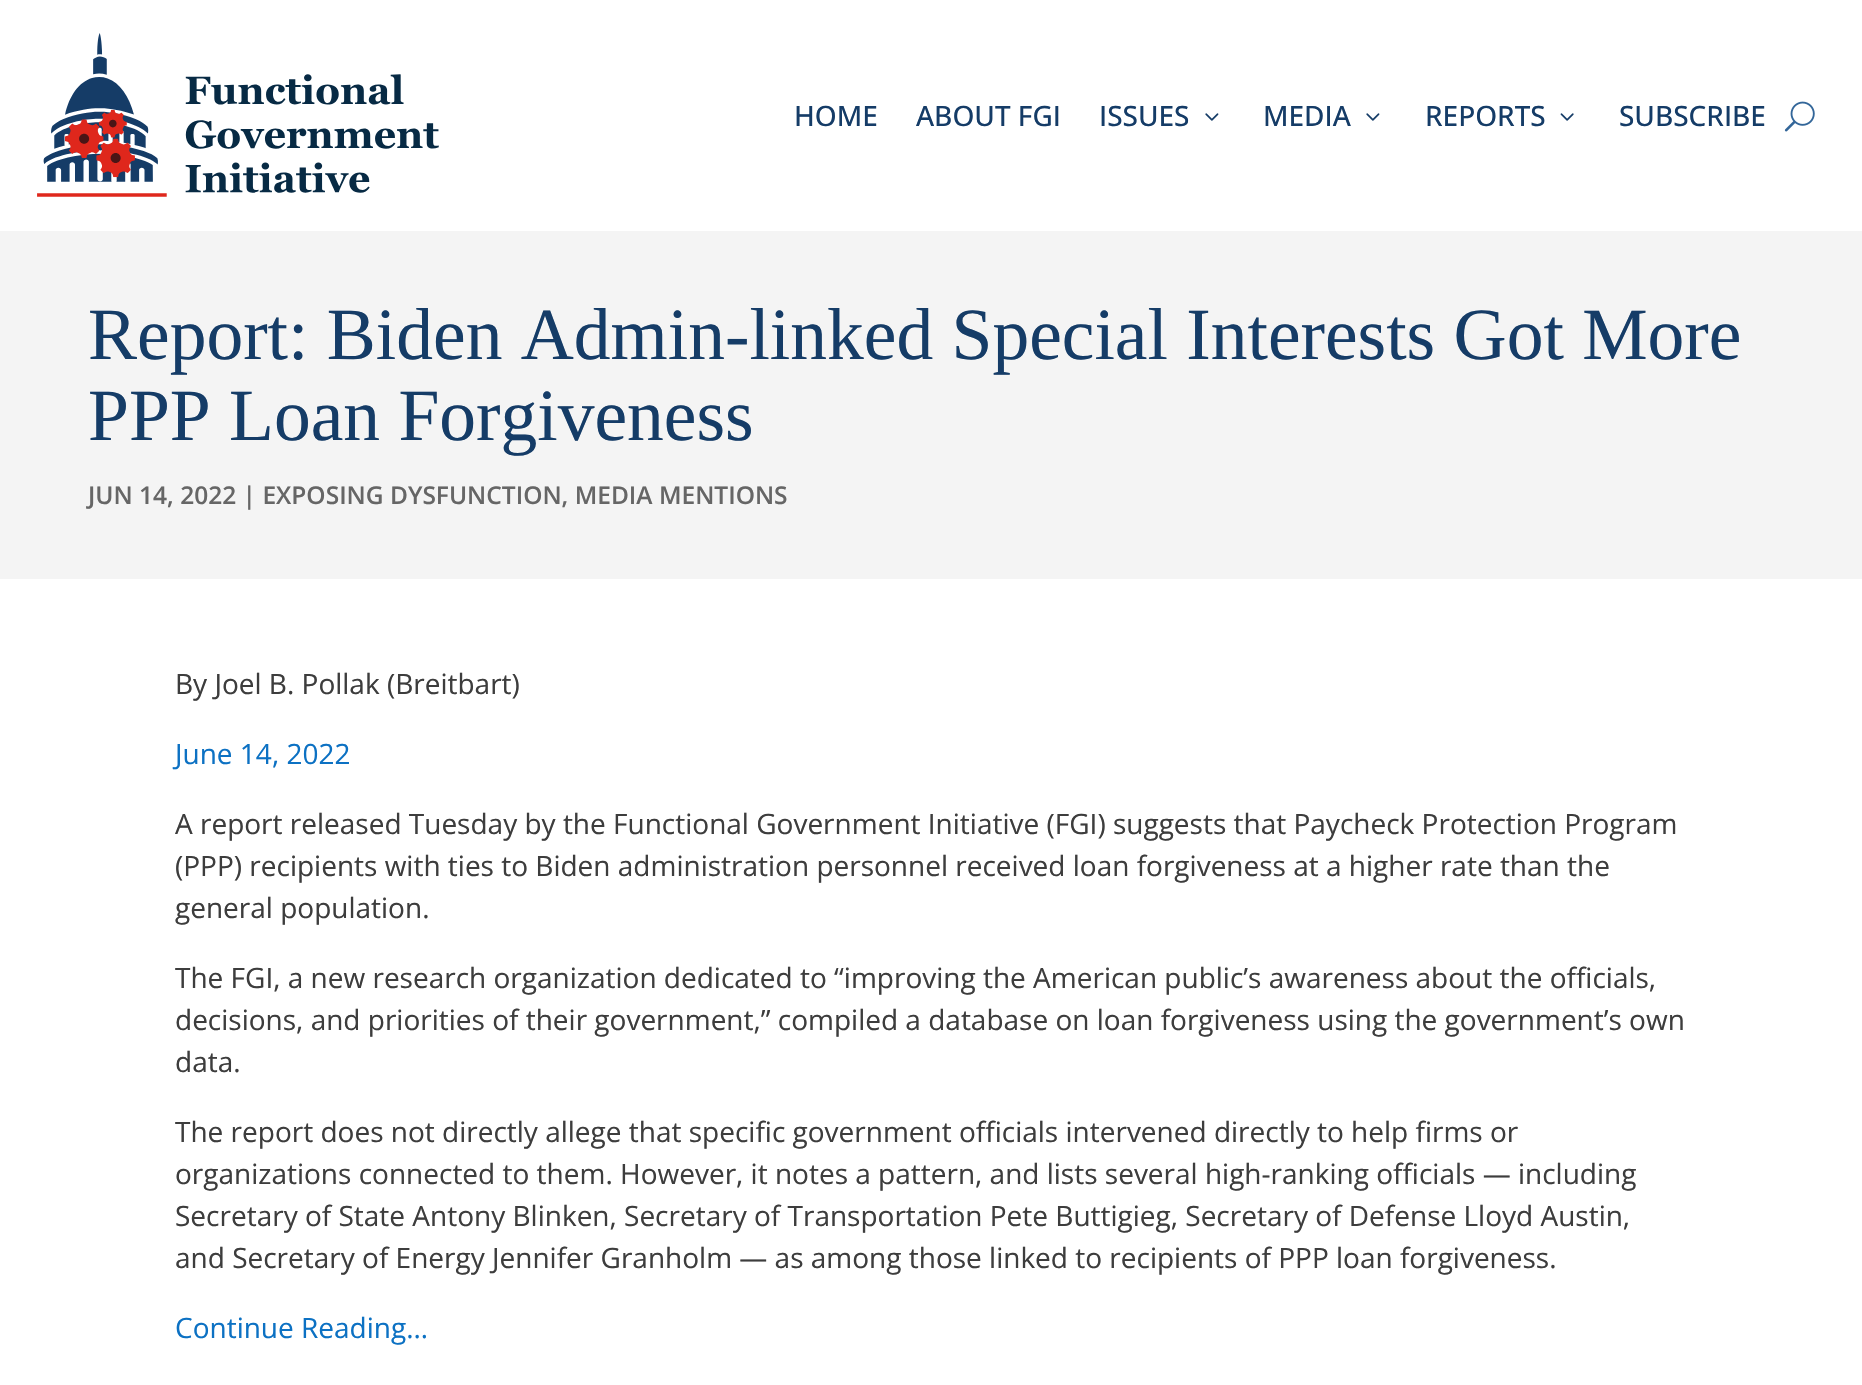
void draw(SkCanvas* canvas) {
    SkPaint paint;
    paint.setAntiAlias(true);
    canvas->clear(0xFFFFFFFF);
    canvas->drawImageRect(SkImages::DeferredFromEncodedData(SkData::MakeFromFileName("img1.png")), SkRect::MakeXYWH(37, 33, 402, 164), SkSamplingOptions());
    SkFont font1(fontMgr->matchFamilyStyle("Open Sans", SkFontStyle(500, SkFontStyle::kNormal_Width, SkFontStyle::kUpright_Slant)), 28);
    font1.setSubpixel(true);
    paint.setColor(0xFF153C67);
    canvas->drawString("HOME", 794, 126, font1, paint);
    canvas->drawString("ABOUT FGI", 916, 126, font1, paint);
    canvas->drawString("ISSUES", 1099, 126, font1, paint);
    canvas->drawImageRect(SkImages::DeferredFromEncodedData(SkData::MakeFromFileName("img2.png")), SkRect::MakeXYWH(1205, 113, 14, 8), SkSamplingOptions());
    canvas->drawString("MEDIA", 1263, 126, font1, paint);
    canvas->drawImageRect(SkImages::DeferredFromEncodedData(SkData::MakeFromFileName("img2.png")), SkRect::MakeXYWH(1366, 113, 14, 8), SkSamplingOptions());
    canvas->drawString("REPORTS", 1425, 126, font1, paint);
    canvas->drawImageRect(SkImages::DeferredFromEncodedData(SkData::MakeFromFileName("img3.png")), SkRect::MakeXYWH(1560, 113, 14, 8), SkSamplingOptions());
    canvas->drawString("SUBSCRIBE", 1619, 126, font1, paint);
    canvas->drawImageRect(SkImages::DeferredFromEncodedData(SkData::MakeFromFileName("img4.png")), SkRect::MakeXYWH(1784, 101, 31, 31), SkSamplingOptions());
    paint.setColor(0xFFF4F4F4);
    canvas->drawRect(SkRect::MakeXYWH(0, 231, 1862, 348), paint);
    SkFont font2(fontMgr->matchFamilyStyle("Liberation Serif", SkFontStyle::Normal()), 73.5f);
    font2.setSubpixel(true);
    paint.setColor(0xFF153C67);
    canvas->drawString("Report: Biden Admin-linked Special Interests Got More", 88, 359, font2, paint);
    canvas->drawString("PPP Loan Forgiveness", 88, 440, font2, paint);
    SkFont font3(fontMgr->matchFamilyStyle("Open Sans", SkFontStyle(600, SkFontStyle::kNormal_Width, SkFontStyle::kUpright_Slant)), 24.5f);
    font3.setSubpixel(true);
    paint.setColor(0xFF666666);
    canvas->drawString("JUN 14, 2022 | EXPOSING DYSFUNCTION, MEDIA MENTIONS", 88, 504, font3, paint);
    SkFont font4(fontMgr->matchFamilyStyle("Open Sans", SkFontStyle::Normal()), 28);
    font4.setSubpixel(true);
    paint.setColor(0xFF3D3D3D);
    canvas->drawString("By Joel B. Pollak (Breitbart)", 175, 694, font4, paint);
    paint.setColor(0xFF0C71C3);
    canvas->drawString("June 14, 2022", 175, 764, font4, paint);
    paint.setColor(0xFF3D3D3D);
    canvas->drawString("A report released Tuesday by the Functional Government Initiative (FGI) suggests that Paycheck Protection Program", 175, 834, font4, paint);
    canvas->drawString("(PPP) recipients with ties to Biden administration personnel received loan forgiveness at a higher rate than the", 175, 876, font4, paint);
    canvas->drawString("general population.", 175, 918, font4, paint);
    canvas->drawString("The FGI, a new research organization dedicated to “improving the American public’s awareness about the officials,", 175, 988, font4, paint);
    canvas->drawString("decisions, and priorities of their government,” compiled a database on loan forgiveness using the government’s own", 175, 1030, font4, paint);
    canvas->drawString("data.", 175, 1072, font4, paint);
    canvas->drawString("The report does not directly allege that specific government officials intervened directly to help firms or", 175, 1142, font4, paint);
    canvas->drawString("organizations connected to them. However, it notes a pattern, and lists several high-ranking officials — including", 175, 1184, font4, paint);
    canvas->drawString("Secretary of State Antony Blinken, Secretary of Transportation Pete Buttigieg, Secretary of Defense Lloyd Austin,", 175, 1226, font4, paint);
    canvas->drawString("and Secretary of Energy Jennifer Granholm — as among those linked to recipients of PPP loan forgiveness.", 175, 1268, font4, paint);
    paint.setColor(0xFF0C71C3);
    canvas->drawString("Continue Reading…", 175, 1338, font4, paint);
}
